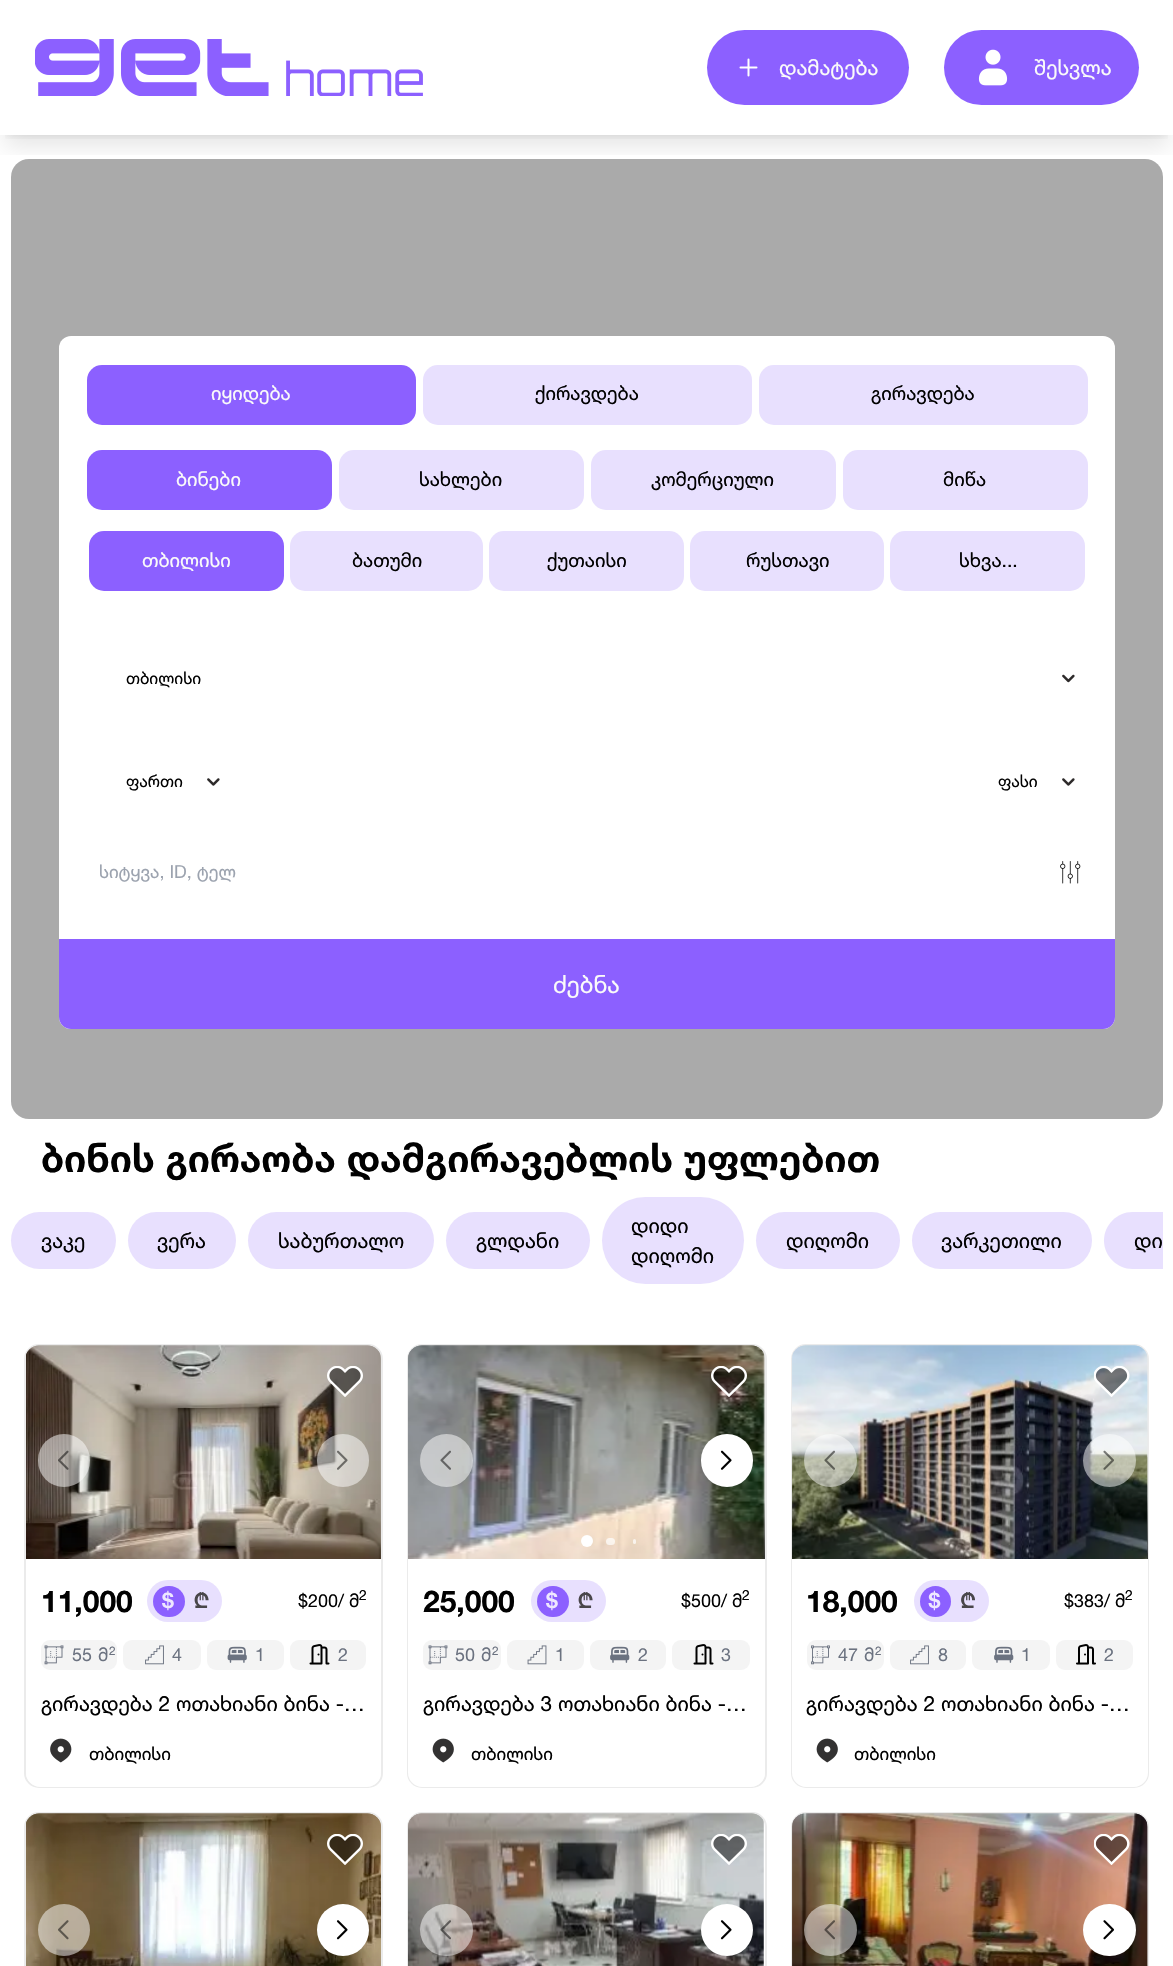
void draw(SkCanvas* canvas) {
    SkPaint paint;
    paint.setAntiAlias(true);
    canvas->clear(0xFFFFFFFF);
    canvas->save();
    canvas->clipRect(SkRect::MakeXYWH(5, 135, 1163, 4));
    paint.setColor(0x1A000000);
    paint.setMaskFilter(SkMaskFilter::MakeBlur(kNormal_SkBlurStyle, 4.5f));
    canvas->drawRect(SkRect::MakeXYWH(6, 12, 1161, 123), paint);
    paint.setMaskFilter(nullptr);
    canvas->restore();
    canvas->save();
    canvas->clipRect(SkRect::MakeXYWH(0, 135, 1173, 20));
    paint.setMaskFilter(SkMaskFilter::MakeBlur(kNormal_SkBlurStyle, 11));
    canvas->drawRect(SkRect::MakeXYWH(5, 20, 1164, 126), paint);
    paint.setMaskFilter(nullptr);
    canvas->restore();
    canvas->drawImageRect(SkImages::DeferredFromEncodedData(SkData::MakeFromFileName("img1.png")), SkRect::MakeXYWH(35, 39, 388, 57), SkSamplingOptions());
    paint.setColor(0xFF8C60FF);
    canvas->drawRoundRect(SkRect::MakeXYWH(707, 30, 202, 75), 37.5f, 37.5f, paint);
    paint.setStyle(SkPaint::kStroke_Style);
    paint.setStrokeWidth(2);
    paint.setStrokeCap(SkPaint::kRound_Cap);
    paint.setStrokeJoin(SkPaint::kRound_Join);
    paint.setColor(0xFFFFFFFF);
    canvas->drawPath(SkPathBuilder().moveTo(740.5f, 67.5f).lineTo(756.5f, 67.5f).moveTo(748.5f, 59.5f).lineTo(748.5f, 75.5f).detach(), paint);
    SkFont font1(fontMgr->matchFamilyStyle("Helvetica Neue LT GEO", SkFontStyle::Normal()), 21);
    font1.setSubpixel(true);
    paint.setStyle(SkPaint::kFill_Style);
    paint.setColor(0xFFFAFAFA);
    canvas->drawString("დამატება", 779, 75, font1, paint);
    paint.setColor(0xFF8C60FF);
    canvas->drawRoundRect(SkRect::MakeXYWH(944, 30, 195, 75), 37.5f, 37.5f, paint);
    canvas->drawImageRect(SkImages::DeferredFromEncodedData(SkData::MakeFromFileName("img2.png")), SkRect::MakeXYWH(978, 49, 30, 37), SkSamplingOptions());
    paint.setColor(0xFFFAFAFA);
    canvas->drawString("შესვლა", 1034, 75, font1, paint);
    paint.setColor(0xFFAAAAAA);
    canvas->drawRoundRect(SkRect::MakeXYWH(11, 159, 1152, 960), 18, 18, paint);
    paint.setColor(0xFFFFFFFF);
    canvas->drawRoundRect(SkRect::MakeXYWH(59, 336, 1056, 693), 12, 12, paint);
    paint.setColor(0xFF8C60FF);
    canvas->drawRoundRect(SkRect::MakeXYWH(87, 365, 329, 60), 15, 15, paint);
    SkFont font2(fontMgr->matchFamilyStyle("Helvetica Neue LT GEO", SkFontStyle::Normal()), 19.5f);
    font2.setSubpixel(true);
    paint.setColor(0xFFFAFAFA);
    canvas->drawString("იყიდება", 211, 400, font2, paint);
    paint.setColor(0xFFE8E0FE);
    canvas->drawRoundRect(SkRect::MakeXYWH(423, 365, 329, 60), 15, 15, paint);
    paint.setColor(0xFF010101);
    canvas->drawString("ქირავდება", 535, 400, font2, paint);
    paint.setColor(0xFFE8E0FE);
    canvas->drawRoundRect(SkRect::MakeXYWH(759, 365, 329, 60), 15, 15, paint);
    paint.setColor(0xFF010101);
    canvas->drawString("გირავდება", 871, 400, font2, paint);
    paint.setColor(0xFF8C60FF);
    canvas->drawRoundRect(SkRect::MakeXYWH(87, 450, 245, 60), 15, 15, paint);
    paint.setColor(0xFFFAFAFA);
    canvas->drawString("ბინები", 176, 486, font2, paint);
    paint.setColor(0xFFE8E0FE);
    canvas->drawRoundRect(SkRect::MakeXYWH(339, 450, 245, 60), 15, 15, paint);
    paint.setColor(0xFF010101);
    canvas->drawString("სახლები", 419, 486, font2, paint);
    paint.setColor(0xFFE8E0FE);
    canvas->drawRoundRect(SkRect::MakeXYWH(591, 450, 245, 60), 15, 15, paint);
    paint.setColor(0xFF010101);
    canvas->drawString("კომერციული", 651, 486, font2, paint);
    paint.setColor(0xFFE8E0FE);
    canvas->drawRoundRect(SkRect::MakeXYWH(843, 450, 245, 60), 15, 15, paint);
    paint.setColor(0xFF010101);
    canvas->drawString("მიწა", 943, 486, font2, paint);
    paint.setColor(0xFF8C60FF);
    canvas->drawRoundRect(SkRect::MakeXYWH(89, 531, 195, 60), 15, 15, paint);
    paint.setColor(0xFFFAFAFA);
    canvas->drawString("თბილისი", 142, 567, font2, paint);
    paint.setColor(0xFFE8E0FE);
    canvas->drawRoundRect(SkRect::MakeXYWH(290, 531, 193, 60), 15, 15, paint);
    paint.setColor(0xFF010101);
    canvas->drawString("ბათუმი", 352, 567, font2, paint);
    paint.setColor(0xFFE8E0FE);
    canvas->drawRoundRect(SkRect::MakeXYWH(489, 531, 195, 60), 15, 15, paint);
    paint.setColor(0xFF010101);
    canvas->drawString("ქუთაისი", 547, 567, font2, paint);
    paint.setColor(0xFFE8E0FE);
    canvas->drawRoundRect(SkRect::MakeXYWH(690, 531, 194, 60), 15, 15, paint);
    paint.setColor(0xFF010101);
    canvas->drawString("რუსთავი", 746, 567, font2, paint);
    paint.setColor(0xFFE8E0FE);
    canvas->drawRoundRect(SkRect::MakeXYWH(890, 531, 195, 60), 15, 15, paint);
    paint.setColor(0xFF010101);
    canvas->drawString("სხვა...", 959, 567, font2, paint);
    SkFont font3(fontMgr->matchFamilyStyle("Helvetica Neue LT GEO", SkFontStyle::Normal()), 16.5f);
    font3.setSubpixel(true);
    canvas->drawString("თბილისი", 126, 684, font3, paint);
    canvas->drawImageRect(SkImages::DeferredFromEncodedData(SkData::MakeFromFileName("img3.png")), SkRect::MakeXYWH(1062, 674, 13, 9), SkSamplingOptions());
    canvas->drawString("ფართი", 126, 787, font3, paint);
    canvas->drawImageRect(SkImages::DeferredFromEncodedData(SkData::MakeFromFileName("img4.png")), SkRect::MakeXYWH(207, 778, 13, 8), SkSamplingOptions());
    canvas->drawString("ფასი", 998, 787, font3, paint);
    canvas->drawImageRect(SkImages::DeferredFromEncodedData(SkData::MakeFromFileName("img4.png")), SkRect::MakeXYWH(1062, 778, 13, 8), SkSamplingOptions());
    SkFont font4(fontMgr->matchFamilyStyle("Helvetica Neue LT GEO", SkFontStyle::Normal()), 18);
    font4.setSubpixel(true);
    paint.setColor(0xFF9CA3AF);
    canvas->drawString("სიტყვა, ID, ტელ", 99, 878, font4, paint);
    canvas->drawImageRect(SkImages::DeferredFromEncodedData(SkData::MakeFromFileName("img5.png")), SkRect::MakeXYWH(1060, 861, 21, 23), SkSamplingOptions());
    paint.setColor(0xFF8C60FF);
    canvas->drawPath(SkPathBuilder().moveTo(59, 939).lineTo(1115, 939).lineTo(1115, 1017).cubicTo(1115, 1023.5f, 1109.5f, 1029, 1103, 1029).lineTo(71, 1029).cubicTo(64.5f, 1029, 59, 1023.5f, 59, 1017).close().detach(), paint);
    SkFont font5(fontMgr->matchFamilyStyle("Helvetica Neue LT GEO", SkFontStyle::Normal()), 24);
    font5.setSubpixel(true);
    paint.setColor(0xFFFAFAFA);
    canvas->drawString("ძებნა", 553, 993, font5, paint);
    SkFont font6(fontMgr->matchFamilyStyle("Helvetica Neue LT GEO", SkFontStyle::Bold()), 39);
    font6.setSubpixel(true);
    paint.setColor(0xFF010101);
    canvas->drawString("ბინის გირაობა დამგირავებლის უფლებით", 41, 1172, font6, paint);
    paint.setColor(0xFFE8E0FE);
    canvas->drawRoundRect(SkRect::MakeXYWH(11, 1212, 105, 57), 28.5f, 28.5f, paint);
    paint.setColor(0xFF010101);
    canvas->drawString("ვაკე", 41, 1248, font1, paint);
    paint.setColor(0xFFE8E0FE);
    canvas->drawRoundRect(SkRect::MakeXYWH(128, 1212, 108, 57), 28.5f, 28.5f, paint);
    paint.setColor(0xFF010101);
    canvas->drawString("ვერა", 157, 1248, font1, paint);
    paint.setColor(0xFFE8E0FE);
    canvas->drawRoundRect(SkRect::MakeXYWH(248, 1212, 186, 57), 28.5f, 28.5f, paint);
    paint.setColor(0xFF010101);
    canvas->drawString("საბურთალო", 278, 1248, font1, paint);
    paint.setColor(0xFFE8E0FE);
    canvas->drawRoundRect(SkRect::MakeXYWH(446, 1212, 144, 57), 28.5f, 28.5f, paint);
    paint.setColor(0xFF010101);
    canvas->drawString("გლდანი", 476, 1248, font1, paint);
    paint.setColor(0xFFE8E0FE);
    canvas->drawRoundRect(SkRect::MakeXYWH(602, 1197, 142, 87), 43.5f, 43.5f, paint);
    paint.setColor(0xFF010101);
    canvas->drawString("დიდი", 631, 1233, font1, paint);
    canvas->drawString("დიღომი", 631, 1263, font1, paint);
    paint.setColor(0xFFE8E0FE);
    canvas->drawRoundRect(SkRect::MakeXYWH(756, 1212, 144, 57), 28.5f, 28.5f, paint);
    paint.setColor(0xFF010101);
    canvas->drawString("დიღომი", 786, 1248, font1, paint);
    paint.setColor(0xFFE8E0FE);
    canvas->drawRoundRect(SkRect::MakeXYWH(912, 1212, 180, 57), 28.5f, 28.5f, paint);
    paint.setColor(0xFF010101);
    canvas->drawString("ვარკეთილი", 941, 1248, font1, paint);
    paint.setColor(0xFFE8E0FE);
    canvas->drawPath(SkPathBuilder().moveTo(1132.5f, 1212).lineTo(1163, 1212).lineTo(1163, 1269).lineTo(1132.5f, 1269).cubicTo(1117, 1269, 1104, 1256, 1104, 1240.5f).cubicTo(1104, 1225, 1117, 1212, 1132.5f, 1212).close().detach(), paint);
    paint.setColor(0xFF010101);
    canvas->drawString("დი", 1134, 1248, font1, paint);
    paint.setStyle(SkPaint::kStroke_Style);
    paint.setStrokeCap(SkPaint::kButt_Cap);
    paint.setStrokeJoin(SkPaint::kMiter_Join);
    paint.setColor(0xFFEBEBEB);
    canvas->drawRoundRect(SkRect::MakeXYWH(25, 1345, 357, 442), 14, 14, paint);
    canvas->drawImageRect(SkImages::DeferredFromEncodedData(SkData::MakeFromFileName("img6.png")), SkRect::MakeXYWH(26, 1345, 355, 214), SkSamplingOptions());
    canvas->drawImageRect(SkImages::DeferredFromEncodedData(SkData::MakeFromFileName("img7.png")), SkRect::MakeXYWH(26, 1345, 355, 214), SkSamplingOptions());
    paint.setStyle(SkPaint::kFill_Style);
    paint.setColor(0x80FFFFFF);
    canvas->drawRoundRect(SkRect::MakeXYWH(38, 1434, 52, 53), 26, 26, paint);
    canvas->drawImageRect(SkImages::DeferredFromEncodedData(SkData::MakeFromFileName("img8.png")), SkRect::MakeXYWH(58, 1450, 11, 20), SkSamplingOptions());
    canvas->drawRoundRect(SkRect::MakeXYWH(317, 1434, 52, 53), 26, 26, paint);
    canvas->drawImageRect(SkImages::DeferredFromEncodedData(SkData::MakeFromFileName("img9.png")), SkRect::MakeXYWH(337, 1450, 11, 20), SkSamplingOptions());
    canvas->drawImageRect(SkImages::DeferredFromEncodedData(SkData::MakeFromFileName("img10.png")), SkRect::MakeXYWH(327, 1366, 36, 31), SkSamplingOptions());
    paint.setColor(0xFFFFFFFF);
    canvas->drawPath(SkPathBuilder().moveTo(26, 1559).lineTo(381, 1559).lineTo(381, 1773).cubicTo(381, 1780.5f, 374.5f, 1787, 367, 1787).lineTo(40, 1787).cubicTo(32.5f, 1787, 26, 1780.5f, 26, 1773).close().detach(), paint);
    SkFont font7(fontMgr->matchFamilyStyle("Helvetica Neue LT GEO", SkFontStyle::Bold()), 30);
    font7.setSubpixel(true);
    paint.setColor(0xFF010101);
    canvas->drawString("11,000", 41, 1612, font7, paint);
    paint.setColor(0xFFE8E0FE);
    canvas->drawRoundRect(SkRect::MakeXYWH(147, 1580, 75, 42), 21, 21, paint);
    paint.setColor(0xFF8C60FF);
    canvas->drawRoundRect(SkRect::MakeXYWH(153, 1586, 32, 31), 15.5f, 15.5f, paint);
    canvas->drawImageRect(SkImages::DeferredFromEncodedData(SkData::MakeFromFileName("img11.png")), SkRect::MakeXYWH(162, 1590, 12, 21), SkSamplingOptions());
    canvas->drawImageRect(SkImages::DeferredFromEncodedData(SkData::MakeFromFileName("img12.png")), SkRect::MakeXYWH(194, 1592, 15, 16), SkSamplingOptions());
    paint.setColor(0xFF010101);
    canvas->drawString("$200/ მ", 298, 1607, font4, paint);
    SkFont font8(fontMgr->matchFamilyStyle("Helvetica Neue LT GEO", SkFontStyle::Normal()), 14);
    font8.setSubpixel(true);
    canvas->drawString("2", 359, 1600, font8, paint);
    paint.setColor(0xFFF4F4F4);
    canvas->drawRoundRect(SkRect::MakeXYWH(41, 1640, 76, 30), 9, 9, paint);
    canvas->drawImageRect(SkImages::DeferredFromEncodedData(SkData::MakeFromFileName("img13.png")), SkRect::MakeXYWH(44, 1645, 20, 20), SkSamplingOptions());
    paint.setColor(0xFF6B7280);
    canvas->drawString("55", 72, 1661, font4, paint);
    canvas->drawString("მ", 98, 1661, font4, paint);
    SkFont font9(fontMgr->matchFamilyStyle("Helvetica Neue LT GEO", SkFontStyle::Normal()), 12);
    font9.setSubpixel(true);
    canvas->drawString("2", 109, 1655, font9, paint);
    paint.setColor(0xFFF4F4F4);
    canvas->drawRoundRect(SkRect::MakeXYWH(123, 1640, 78, 30), 9, 9, paint);
    canvas->drawImageRect(SkImages::DeferredFromEncodedData(SkData::MakeFromFileName("img14.png")), SkRect::MakeXYWH(145, 1645, 19, 20), SkSamplingOptions());
    paint.setColor(0xFF6B7280);
    canvas->drawString("4", 172, 1661, font4, paint);
    paint.setColor(0xFFF4F4F4);
    canvas->drawRoundRect(SkRect::MakeXYWH(207, 1640, 77, 30), 9, 9, paint);
    canvas->drawImageRect(SkImages::DeferredFromEncodedData(SkData::MakeFromFileName("img15.png")), SkRect::MakeXYWH(227, 1646, 20, 17), SkSamplingOptions());
    paint.setColor(0xFF6B7280);
    canvas->drawString("1", 255, 1661, font4, paint);
    paint.setColor(0xFFF4F4F4);
    canvas->drawRoundRect(SkRect::MakeXYWH(290, 1640, 76, 30), 9, 9, paint);
    canvas->drawImageRect(SkImages::DeferredFromEncodedData(SkData::MakeFromFileName("img16.png")), SkRect::MakeXYWH(309, 1644, 21, 21), SkSamplingOptions());
    paint.setColor(0xFF6B7280);
    canvas->drawString("2", 338, 1661, font4, paint);
    paint.setColor(0xFF010101);
    canvas->drawString("გირავდება 2 ოთახიანი ბინა -…", 41, 1711, font1, paint);
    canvas->drawImageRect(SkImages::DeferredFromEncodedData(SkData::MakeFromFileName("img17.png")), SkRect::MakeXYWH(50, 1738, 22, 25), SkSamplingOptions());
    canvas->drawString("თბილისი", 89, 1760, font4, paint);
    paint.setStyle(SkPaint::kStroke_Style);
    paint.setColor(0xFFEBEBEB);
    canvas->drawRoundRect(SkRect::MakeXYWH(408, 1345, 358, 442), 14, 14, paint);
    paint.setStyle(SkPaint::kFill_Style);
    {
        const SkColor colors[] = {0x00333232, 0xFF333232};
        const float stops[] = {0, 1};
        const SkPoint ends[] = {{587, 1496}, {587, 1559}};
        paint.setShader(SkGradientShader::MakeLinear(ends, colors, stops, 2, SkTileMode::kClamp));
        paint.setAlpha(255);
    }
    canvas->drawRect(SkRect::MakeXYWH(761, 1497, 4, 62), paint);
    canvas->drawImageRect(SkImages::DeferredFromEncodedData(SkData::MakeFromFileName("img18.png")), SkRect::MakeXYWH(408, 1345, 357, 214), SkSamplingOptions());
    canvas->drawImageRect(SkImages::DeferredFromEncodedData(SkData::MakeFromFileName("img19.png")), SkRect::MakeXYWH(408, 1345, 357, 214), SkSamplingOptions());
    paint.setShader(nullptr);
    paint.setColor(0x80FFFFFF);
    canvas->drawCircle(446.5f, 1460.5f, 26.5f, paint);
    canvas->drawImageRect(SkImages::DeferredFromEncodedData(SkData::MakeFromFileName("img20.png")), SkRect::MakeXYWH(440, 1450, 11, 20), SkSamplingOptions());
    paint.setColor(0xFFFFFFFF);
    canvas->drawRoundRect(SkRect::MakeXYWH(701, 1434, 52, 53), 26, 26, paint);
    canvas->drawImageRect(SkImages::DeferredFromEncodedData(SkData::MakeFromFileName("img21.png")), SkRect::MakeXYWH(720, 1450, 12, 20), SkSamplingOptions());
    canvas->drawCircle(587, 1541, 6, paint);
    paint.setColor(0xB3FFFFFF);
    canvas->drawRoundRect(SkRect::MakeXYWH(606, 1538, 9, 7), 3.5f, 3.5f, paint);
    canvas->drawRoundRect(SkRect::MakeXYWH(633, 1539, 3, 5), 1.5f, 1.5f, paint);
    canvas->drawImageRect(SkImages::DeferredFromEncodedData(SkData::MakeFromFileName("img22.png")), SkRect::MakeXYWH(711, 1366, 36, 31), SkSamplingOptions());
    paint.setColor(0xFFFFFFFF);
    canvas->drawPath(SkPathBuilder().moveTo(408, 1559).lineTo(765, 1559).lineTo(765, 1773).cubicTo(765, 1780.5f, 758.5f, 1787, 751, 1787).lineTo(422, 1787).cubicTo(414.5f, 1787, 408, 1780.5f, 408, 1773).close().detach(), paint);
    paint.setColor(0xFF010101);
    canvas->drawString("25,000", 423, 1612, font7, paint);
    paint.setColor(0xFFE8E0FE);
    canvas->drawRoundRect(SkRect::MakeXYWH(531, 1580, 75, 42), 21, 21, paint);
    paint.setColor(0xFF8C60FF);
    canvas->drawRoundRect(SkRect::MakeXYWH(537, 1586, 32, 31), 15.5f, 15.5f, paint);
    canvas->drawImageRect(SkImages::DeferredFromEncodedData(SkData::MakeFromFileName("img11.png")), SkRect::MakeXYWH(546, 1590, 12, 21), SkSamplingOptions());
    canvas->drawImageRect(SkImages::DeferredFromEncodedData(SkData::MakeFromFileName("img12.png")), SkRect::MakeXYWH(578, 1592, 15, 16), SkSamplingOptions());
    paint.setColor(0xFF010101);
    canvas->drawString("$500/ მ", 681, 1607, font4, paint);
    canvas->drawString("2", 742, 1600, font8, paint);
    paint.setColor(0xFFF4F4F4);
    canvas->drawRoundRect(SkRect::MakeXYWH(423, 1640, 78, 30), 9, 9, paint);
    canvas->drawImageRect(SkImages::DeferredFromEncodedData(SkData::MakeFromFileName("img13.png")), SkRect::MakeXYWH(428, 1645, 20, 20), SkSamplingOptions());
    paint.setColor(0xFF6B7280);
    canvas->drawString("50", 455, 1661, font4, paint);
    canvas->drawString("მ", 481, 1661, font4, paint);
    canvas->drawString("2", 492, 1655, font9, paint);
    paint.setColor(0xFFF4F4F4);
    canvas->drawRoundRect(SkRect::MakeXYWH(507, 1640, 77, 30), 9, 9, paint);
    canvas->drawImageRect(SkImages::DeferredFromEncodedData(SkData::MakeFromFileName("img23.png")), SkRect::MakeXYWH(527, 1645, 20, 20), SkSamplingOptions());
    paint.setColor(0xFF6B7280);
    canvas->drawString("1", 555, 1661, font4, paint);
    paint.setColor(0xFFF4F4F4);
    canvas->drawRoundRect(SkRect::MakeXYWH(590, 1640, 76, 30), 9, 9, paint);
    canvas->drawImageRect(SkImages::DeferredFromEncodedData(SkData::MakeFromFileName("img24.png")), SkRect::MakeXYWH(610, 1646, 20, 17), SkSamplingOptions());
    paint.setColor(0xFF6B7280);
    canvas->drawString("2", 638, 1661, font4, paint);
    paint.setColor(0xFFF4F4F4);
    canvas->drawRoundRect(SkRect::MakeXYWH(672, 1640, 78, 30), 9, 9, paint);
    canvas->drawImageRect(SkImages::DeferredFromEncodedData(SkData::MakeFromFileName("img16.png")), SkRect::MakeXYWH(693, 1644, 21, 21), SkSamplingOptions());
    paint.setColor(0xFF6B7280);
    canvas->drawString("3", 721, 1661, font4, paint);
    paint.setColor(0xFF010101);
    canvas->drawString("გირავდება 3 ოთახიანი ბინა -…", 423, 1711, font1, paint);
    canvas->drawImageRect(SkImages::DeferredFromEncodedData(SkData::MakeFromFileName("img25.png")), SkRect::MakeXYWH(432, 1738, 22, 25), SkSamplingOptions());
    canvas->drawString("თბილისი", 471, 1760, font4, paint);
    paint.setStyle(SkPaint::kStroke_Style);
    paint.setColor(0xFFEBEBEB);
    canvas->drawRoundRect(SkRect::MakeXYWH(792, 1345, 356, 442), 14, 14, paint);
    paint.setStyle(SkPaint::kFill_Style);
    {
        const SkColor colors[] = {0x00333232, 0xFF333232};
        const float stops[] = {0, 1};
        const SkPoint ends[] = {{970, 1496}, {970, 1559}};
        paint.setShader(SkGradientShader::MakeLinear(ends, colors, stops, 2, SkTileMode::kClamp));
        paint.setAlpha(255);
    }
    canvas->drawRect(SkRect::MakeXYWH(792, 1497, 356, 62), paint);
    canvas->drawImageRect(SkImages::DeferredFromEncodedData(SkData::MakeFromFileName("img26.png")), SkRect::MakeXYWH(792, 1345, 356, 214), SkSamplingOptions());
    canvas->drawImageRect(SkImages::DeferredFromEncodedData(SkData::MakeFromFileName("img27.png")), SkRect::MakeXYWH(792, 1345, 356, 214), SkSamplingOptions());
    paint.setShader(nullptr);
    paint.setColor(0x80FFFFFF);
    canvas->drawCircle(830.5f, 1460.5f, 26.5f, paint);
    canvas->drawImageRect(SkImages::DeferredFromEncodedData(SkData::MakeFromFileName("img28.png")), SkRect::MakeXYWH(824, 1450, 11, 20), SkSamplingOptions());
    canvas->drawCircle(1109.5f, 1460.5f, 26.5f, paint);
    canvas->drawImageRect(SkImages::DeferredFromEncodedData(SkData::MakeFromFileName("img29.png")), SkRect::MakeXYWH(1103, 1450, 11, 20), SkSamplingOptions());
    canvas->drawImageRect(SkImages::DeferredFromEncodedData(SkData::MakeFromFileName("img30.png")), SkRect::MakeXYWH(1094, 1366, 36, 31), SkSamplingOptions());
    paint.setColor(0xFFFFFFFF);
    canvas->drawPath(SkPathBuilder().moveTo(792, 1559).lineTo(1148, 1559).lineTo(1148, 1773).cubicTo(1148, 1780.5f, 1141.5f, 1787, 1134, 1787).lineTo(806, 1787).cubicTo(798.5f, 1787, 792, 1780.5f, 792, 1773).close().detach(), paint);
    paint.setColor(0xFF010101);
    canvas->drawString("18,000", 806, 1612, font7, paint);
    paint.setColor(0xFFE8E0FE);
    canvas->drawRoundRect(SkRect::MakeXYWH(914, 1580, 75, 42), 21, 21, paint);
    paint.setColor(0xFF8C60FF);
    canvas->drawCircle(935.5f, 1601.5f, 15.5f, paint);
    canvas->drawImageRect(SkImages::DeferredFromEncodedData(SkData::MakeFromFileName("img31.png")), SkRect::MakeXYWH(928, 1590, 13, 21), SkSamplingOptions());
    canvas->drawImageRect(SkImages::DeferredFromEncodedData(SkData::MakeFromFileName("img32.png")), SkRect::MakeXYWH(961, 1592, 14, 16), SkSamplingOptions());
    paint.setColor(0xFF010101);
    canvas->drawString("$383/ მ", 1064, 1607, font4, paint);
    canvas->drawString("2", 1125, 1600, font8, paint);
    paint.setColor(0xFFF4F4F4);
    canvas->drawRoundRect(SkRect::MakeXYWH(807, 1640, 77, 30), 9, 9, paint);
    canvas->drawImageRect(SkImages::DeferredFromEncodedData(SkData::MakeFromFileName("img33.png")), SkRect::MakeXYWH(811, 1645, 19, 20), SkSamplingOptions());
    paint.setColor(0xFF6B7280);
    canvas->drawString("47", 838, 1661, font4, paint);
    canvas->drawString("მ", 864, 1661, font4, paint);
    canvas->drawString("2", 875, 1655, font9, paint);
    paint.setColor(0xFFF4F4F4);
    canvas->drawRoundRect(SkRect::MakeXYWH(890, 1640, 76, 30), 9, 9, paint);
    canvas->drawImageRect(SkImages::DeferredFromEncodedData(SkData::MakeFromFileName("img14.png")), SkRect::MakeXYWH(910, 1645, 19, 20), SkSamplingOptions());
    paint.setColor(0xFF6B7280);
    canvas->drawString("8", 938, 1661, font4, paint);
    paint.setColor(0xFFF4F4F4);
    canvas->drawRoundRect(SkRect::MakeXYWH(972, 1640, 78, 30), 9, 9, paint);
    canvas->drawImageRect(SkImages::DeferredFromEncodedData(SkData::MakeFromFileName("img24.png")), SkRect::MakeXYWH(994, 1646, 20, 17), SkSamplingOptions());
    paint.setColor(0xFF6B7280);
    canvas->drawString("1", 1021, 1661, font4, paint);
    paint.setColor(0xFFF4F4F4);
    canvas->drawRoundRect(SkRect::MakeXYWH(1056, 1640, 77, 30), 9, 9, paint);
    canvas->drawImageRect(SkImages::DeferredFromEncodedData(SkData::MakeFromFileName("img34.png")), SkRect::MakeXYWH(1076, 1644, 20, 21), SkSamplingOptions());
    paint.setColor(0xFF6B7280);
    canvas->drawString("2", 1104, 1661, font4, paint);
    paint.setColor(0xFF010101);
    canvas->drawString("გირავდება 2 ოთახიანი ბინა -…", 806, 1711, font1, paint);
    canvas->drawImageRect(SkImages::DeferredFromEncodedData(SkData::MakeFromFileName("img25.png")), SkRect::MakeXYWH(816, 1738, 22, 25), SkSamplingOptions());
    canvas->drawString("თბილისი", 854, 1760, font4, paint);
    paint.setStyle(SkPaint::kStroke_Style);
    paint.setColor(0xFFEBEBEB);
    canvas->drawRoundRect(SkRect::MakeXYWH(25, 1813, 357, 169), 14, 14, paint);
    canvas->drawImageRect(SkImages::DeferredFromEncodedData(SkData::MakeFromFileName("img35.png")), SkRect::MakeXYWH(26, 1813, 355, 14), SkSamplingOptions());
    canvas->drawImageRect(SkImages::DeferredFromEncodedData(SkData::MakeFromFileName("img36.png")), SkRect::MakeXYWH(26, 1813, 355, 153), SkSamplingOptions());
    paint.setStyle(SkPaint::kFill_Style);
    paint.setColor(0x80FFFFFF);
    canvas->drawCircle(64, 1930, 26, paint);
    canvas->drawImageRect(SkImages::DeferredFromEncodedData(SkData::MakeFromFileName("img37.png")), SkRect::MakeXYWH(58, 1920, 11, 20), SkSamplingOptions());
    paint.setColor(0xFFFFFFFF);
    canvas->drawCircle(343, 1930, 26, paint);
    canvas->drawImageRect(SkImages::DeferredFromEncodedData(SkData::MakeFromFileName("img38.png")), SkRect::MakeXYWH(336, 1920, 12, 20), SkSamplingOptions());
    canvas->drawImageRect(SkImages::DeferredFromEncodedData(SkData::MakeFromFileName("img39.png")), SkRect::MakeXYWH(327, 1834, 36, 31), SkSamplingOptions());
    paint.setStyle(SkPaint::kStroke_Style);
    paint.setColor(0xFFEBEBEB);
    canvas->drawRoundRect(SkRect::MakeXYWH(408, 1813, 358, 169), 14, 14, paint);
    paint.setStyle(SkPaint::kFill_Style);
    {
        const SkColor colors[] = {0x00333232, 0xFF333232};
        const float stops[] = {0, 1};
        const SkPoint ends[] = {{587, 1964}, {587, 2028}};
        paint.setShader(SkGradientShader::MakeLinear(ends, colors, stops, 2, SkTileMode::kClamp));
        paint.setAlpha(255);
    }
    canvas->drawRect(SkRect::MakeXYWH(763, 1965, 2, 1), paint);
    canvas->drawImageRect(SkImages::DeferredFromEncodedData(SkData::MakeFromFileName("img40.png")), SkRect::MakeXYWH(408, 1813, 356, 153), SkSamplingOptions());
    canvas->drawImageRect(SkImages::DeferredFromEncodedData(SkData::MakeFromFileName("img41.png")), SkRect::MakeXYWH(408, 1813, 356, 153), SkSamplingOptions());
    paint.setShader(nullptr);
    paint.setColor(0x80FFFFFF);
    canvas->drawRoundRect(SkRect::MakeXYWH(420, 1904, 53, 52), 26, 26, paint);
    canvas->drawImageRect(SkImages::DeferredFromEncodedData(SkData::MakeFromFileName("img42.png")), SkRect::MakeXYWH(440, 1920, 11, 20), SkSamplingOptions());
    paint.setColor(0xFFFFFFFF);
    canvas->drawCircle(727, 1930, 26, paint);
    canvas->drawImageRect(SkImages::DeferredFromEncodedData(SkData::MakeFromFileName("img38.png")), SkRect::MakeXYWH(720, 1920, 12, 20), SkSamplingOptions());
    canvas->drawImageRect(SkImages::DeferredFromEncodedData(SkData::MakeFromFileName("img43.png")), SkRect::MakeXYWH(711, 1834, 36, 31), SkSamplingOptions());
    paint.setStyle(SkPaint::kStroke_Style);
    paint.setColor(0xFFEBEBEB);
    canvas->drawRoundRect(SkRect::MakeXYWH(792, 1813, 356, 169), 14, 14, paint);
    paint.setStyle(SkPaint::kFill_Style);
    {
        const SkColor colors[] = {0x00333232, 0xFF333232};
        const float stops[] = {0, 1};
        const SkPoint ends[] = {{970, 1964}, {970, 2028}};
        paint.setShader(SkGradientShader::MakeLinear(ends, colors, stops, 2, SkTileMode::kClamp));
        paint.setAlpha(255);
    }
    canvas->drawRect(SkRect::MakeXYWH(792, 1965, 356, 1), paint);
    canvas->drawImageRect(SkImages::DeferredFromEncodedData(SkData::MakeFromFileName("img44.png")), SkRect::MakeXYWH(792, 1813, 356, 153), SkSamplingOptions());
    canvas->drawImageRect(SkImages::DeferredFromEncodedData(SkData::MakeFromFileName("img45.png")), SkRect::MakeXYWH(792, 1813, 356, 153), SkSamplingOptions());
    paint.setShader(nullptr);
    paint.setColor(0x80FFFFFF);
    canvas->drawRoundRect(SkRect::MakeXYWH(804, 1904, 53, 52), 26, 26, paint);
    canvas->drawImageRect(SkImages::DeferredFromEncodedData(SkData::MakeFromFileName("img46.png")), SkRect::MakeXYWH(824, 1920, 11, 20), SkSamplingOptions());
    paint.setColor(0xFFFFFFFF);
    canvas->drawRoundRect(SkRect::MakeXYWH(1083, 1904, 53, 52), 26, 26, paint);
    canvas->drawImageRect(SkImages::DeferredFromEncodedData(SkData::MakeFromFileName("img47.png")), SkRect::MakeXYWH(1103, 1920, 11, 20), SkSamplingOptions());
    canvas->drawImageRect(SkImages::DeferredFromEncodedData(SkData::MakeFromFileName("img48.png")), SkRect::MakeXYWH(1094, 1834, 36, 31), SkSamplingOptions());
}
